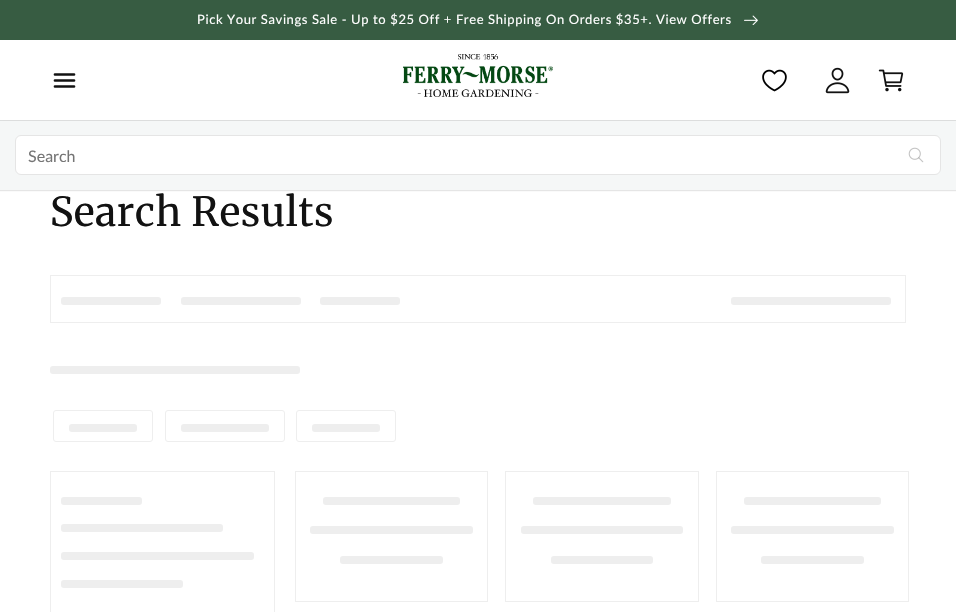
void draw(SkCanvas* canvas) {
    SkPaint paint;
    paint.setAntiAlias(true);
    auto spacedText = [&](const char* s, float x, float y, const SkFont& font, const SkPaint& ink, float letter, float word) {
        std::vector<SkGlyphID> glyphs(font.countText(s, strlen(s), SkTextEncoding::kUTF8));
        std::vector<float> xs(glyphs.size());
        font.textToGlyphs(s, strlen(s), SkTextEncoding::kUTF8, glyphs);
        font.getXPos(glyphs, xs, x);
        float extra = 0;
        for (size_t i = 0; i < glyphs.size(); i++) {
            xs[i] += extra;
            extra += letter + word * (glyphs[i] == font.unicharToGlyph(' '));
        }
        canvas->drawTextBlob(SkTextBlob::MakeFromPosHGlyphs(glyphs, xs, y, font), 0, 0, ink);
    };
    canvas->clear(0xFFFFFFFF);
    paint.setColor(0xFF375C42);
    canvas->drawRect(SkRect::MakeXYWH(0, 0, 956, 40), paint);
    SkFont font1(fontMgr->matchFamilyStyle("Lato", SkFontStyle::Normal()), 13);
    font1.setSubpixel(true);
    paint.setColor(0xFFFFFFFF);
    spacedText("Pick Your Savings Sale - Up to $25 Off + Free Shipping On Orders $35+. View Offers", 197, 24, font1, paint, 0.6f, 0);
    canvas->drawImageRect(SkImages::DeferredFromEncodedData(SkData::MakeFromFileName("img1.png")), SkRect::MakeXYWH(744, 15, 14, 10), SkSamplingOptions());
    paint.setColor(0x1A000000);
    paint.setMaskFilter(SkMaskFilter::MakeBlur(kNormal_SkBlurStyle, 0.5f));
    canvas->drawRect(SkRect::MakeXYWH(0, 121, 956, 70), paint);
    paint.setMaskFilter(nullptr);
    paint.setColor(0xFFF5F7F7);
    canvas->drawRect(SkRect::MakeXYWH(0, 120, 956, 70), paint);
    canvas->save();
    canvas->clipRect(SkRect::MakeXYWH(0, 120, 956, 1));
    paint.setColor(0x1A000000);
    paint.setMaskFilter(SkMaskFilter::MakeBlur(kNormal_SkBlurStyle, 0.5f));
    canvas->drawRect(SkRect::MakeXYWH(0, 41, 956, 80), paint);
    paint.setMaskFilter(nullptr);
    canvas->restore();
    paint.setStyle(SkPaint::kStroke_Style);
    paint.setStrokeWidth(2.7f);
    paint.setStrokeCap(SkPaint::kRound_Cap);
    paint.setColor(0xFF121212);
    canvas->drawPath(SkPathBuilder().moveTo(55, 74.5f).lineTo(74, 74.5f).moveTo(55, 80.5f).lineTo(74, 80.5f).moveTo(55, 86.5f).lineTo(74, 86.5f).detach(), paint);
    canvas->drawImageRect(SkImages::DeferredFromEncodedData(SkData::MakeFromFileName("img2.png")), SkRect::MakeXYWH(403, 54, 150, 43), SkSamplingOptions());
    canvas->drawImageRect(SkImages::DeferredFromEncodedData(SkData::MakeFromFileName("img3.png")), SkRect::MakeXYWH(762, 69, 25, 23), SkSamplingOptions());
    canvas->drawImageRect(SkImages::DeferredFromEncodedData(SkData::MakeFromFileName("img4.png")), SkRect::MakeXYWH(825, 67, 25, 27), SkSamplingOptions());
    canvas->drawImageRect(SkImages::DeferredFromEncodedData(SkData::MakeFromFileName("img5.png")), SkRect::MakeXYWH(878, 69, 26, 23), SkSamplingOptions());
    paint.setStyle(SkPaint::kFill_Style);
    paint.setColor(0xFFFFFFFF);
    canvas->drawRoundRect(SkRect::MakeXYWH(15.5f, 135.5f, 925, 39), 5.5f, 5.5f, paint);
    paint.setStyle(SkPaint::kStroke_Style);
    paint.setStrokeWidth(1);
    paint.setStrokeCap(SkPaint::kButt_Cap);
    paint.setColor(0xFFE5E5E5);
    canvas->drawRoundRect(SkRect::MakeXYWH(15.5f, 135.5f, 925, 39), 5.5f, 5.5f, paint);
    SkFont font2(fontMgr->matchFamilyStyle("Lato", SkFontStyle::Normal()), 16);
    font2.setSubpixel(true);
    paint.setStyle(SkPaint::kFill_Style);
    paint.setColor(0xFF757575);
    canvas->drawString("Search", 28, 162, font2, paint);
    canvas->drawImageRect(SkImages::DeferredFromEncodedData(SkData::MakeFromFileName("img6.png")), SkRect::MakeXYWH(908, 147, 16, 16), SkSamplingOptions());
    SkFont font3(fontMgr->matchFamilyStyle("Merriweather", SkFontStyle::Normal()), 40);
    font3.setSubpixel(true);
    paint.setColor(0xFF121212);
    spacedText("Search Results", 50, 226, font3, paint, 0.75f, 0);
    paint.setStyle(SkPaint::kStroke_Style);
    paint.setColor(0xFFEEEEEE);
    canvas->drawRect(SkRect::MakeXYWH(50.5f, 275.5f, 855, 47), paint);
    paint.setStyle(SkPaint::kFill_Style);
    canvas->drawRoundRect(SkRect::MakeXYWH(61, 297, 100, 8), 3, 3, paint);
    canvas->drawRoundRect(SkRect::MakeXYWH(181, 297, 120, 8), 3, 3, paint);
    canvas->drawRoundRect(SkRect::MakeXYWH(320, 297, 80, 8), 3, 3, paint);
    canvas->drawRoundRect(SkRect::MakeXYWH(731, 297, 160, 8), 3, 3, paint);
    canvas->drawRoundRect(SkRect::MakeXYWH(50, 366, 250, 8), 3, 3, paint);
    paint.setStyle(SkPaint::kStroke_Style);
    canvas->drawRoundRect(SkRect::MakeXYWH(53.5f, 410.5f, 99, 31), 2.5f, 2.5f, paint);
    paint.setStyle(SkPaint::kFill_Style);
    canvas->drawRoundRect(SkRect::MakeXYWH(69, 424, 68, 8), 3, 3, paint);
    paint.setStyle(SkPaint::kStroke_Style);
    canvas->drawRoundRect(SkRect::MakeXYWH(165.5f, 410.5f, 119, 31), 2.5f, 2.5f, paint);
    paint.setStyle(SkPaint::kFill_Style);
    canvas->drawRoundRect(SkRect::MakeXYWH(181, 424, 88, 8), 3, 3, paint);
    paint.setStyle(SkPaint::kStroke_Style);
    canvas->drawRoundRect(SkRect::MakeXYWH(296.5f, 410.5f, 99, 31), 2.5f, 2.5f, paint);
    paint.setStyle(SkPaint::kFill_Style);
    canvas->drawRoundRect(SkRect::MakeXYWH(312, 424, 68, 8), 3, 3, paint);
    canvas->drawRect(SkRect::MakeXYWH(50, 471, 225, 1), paint);
    canvas->drawRect(SkRect::MakeXYWH(274, 471, 1, 141), paint);
    canvas->drawRect(SkRect::MakeXYWH(50, 471, 1, 141), paint);
    canvas->drawRoundRect(SkRect::MakeXYWH(61, 497, 81, 8), 3, 3, paint);
    canvas->drawRoundRect(SkRect::MakeXYWH(61, 524, 162, 8), 3, 3, paint);
    canvas->drawRoundRect(SkRect::MakeXYWH(61, 552, 193, 8), 3, 3, paint);
    canvas->drawRoundRect(SkRect::MakeXYWH(61, 580, 122, 8), 3, 3, paint);
    paint.setStyle(SkPaint::kStroke_Style);
    canvas->drawRect(SkRect::MakeXYWH(295.5f, 471.5f, 192, 130), paint);
    paint.setStyle(SkPaint::kFill_Style);
    canvas->drawRoundRect(SkRect::MakeXYWH(323, 497, 137, 8), 3, 3, paint);
    canvas->drawRoundRect(SkRect::MakeXYWH(310, 526, 163, 8), 3, 3, paint);
    canvas->drawRoundRect(SkRect::MakeXYWH(340, 556, 103, 8), 3, 3, paint);
    paint.setStyle(SkPaint::kStroke_Style);
    canvas->drawRect(SkRect::MakeXYWH(505.5f, 471.5f, 193, 130), paint);
    paint.setStyle(SkPaint::kFill_Style);
    canvas->drawRoundRect(SkRect::MakeXYWH(533, 497, 138, 8), 3, 3, paint);
    canvas->drawRoundRect(SkRect::MakeXYWH(521, 526, 162, 8), 3, 3, paint);
    canvas->drawRoundRect(SkRect::MakeXYWH(551, 556, 102, 8), 3, 3, paint);
    paint.setStyle(SkPaint::kStroke_Style);
    canvas->drawRect(SkRect::MakeXYWH(716.5f, 471.5f, 192, 130), paint);
    paint.setStyle(SkPaint::kFill_Style);
    canvas->drawRoundRect(SkRect::MakeXYWH(744, 497, 137, 8), 3, 3, paint);
    canvas->drawRoundRect(SkRect::MakeXYWH(731, 526, 163, 8), 3, 3, paint);
    canvas->drawRoundRect(SkRect::MakeXYWH(761, 556, 103, 8), 3, 3, paint);
}
